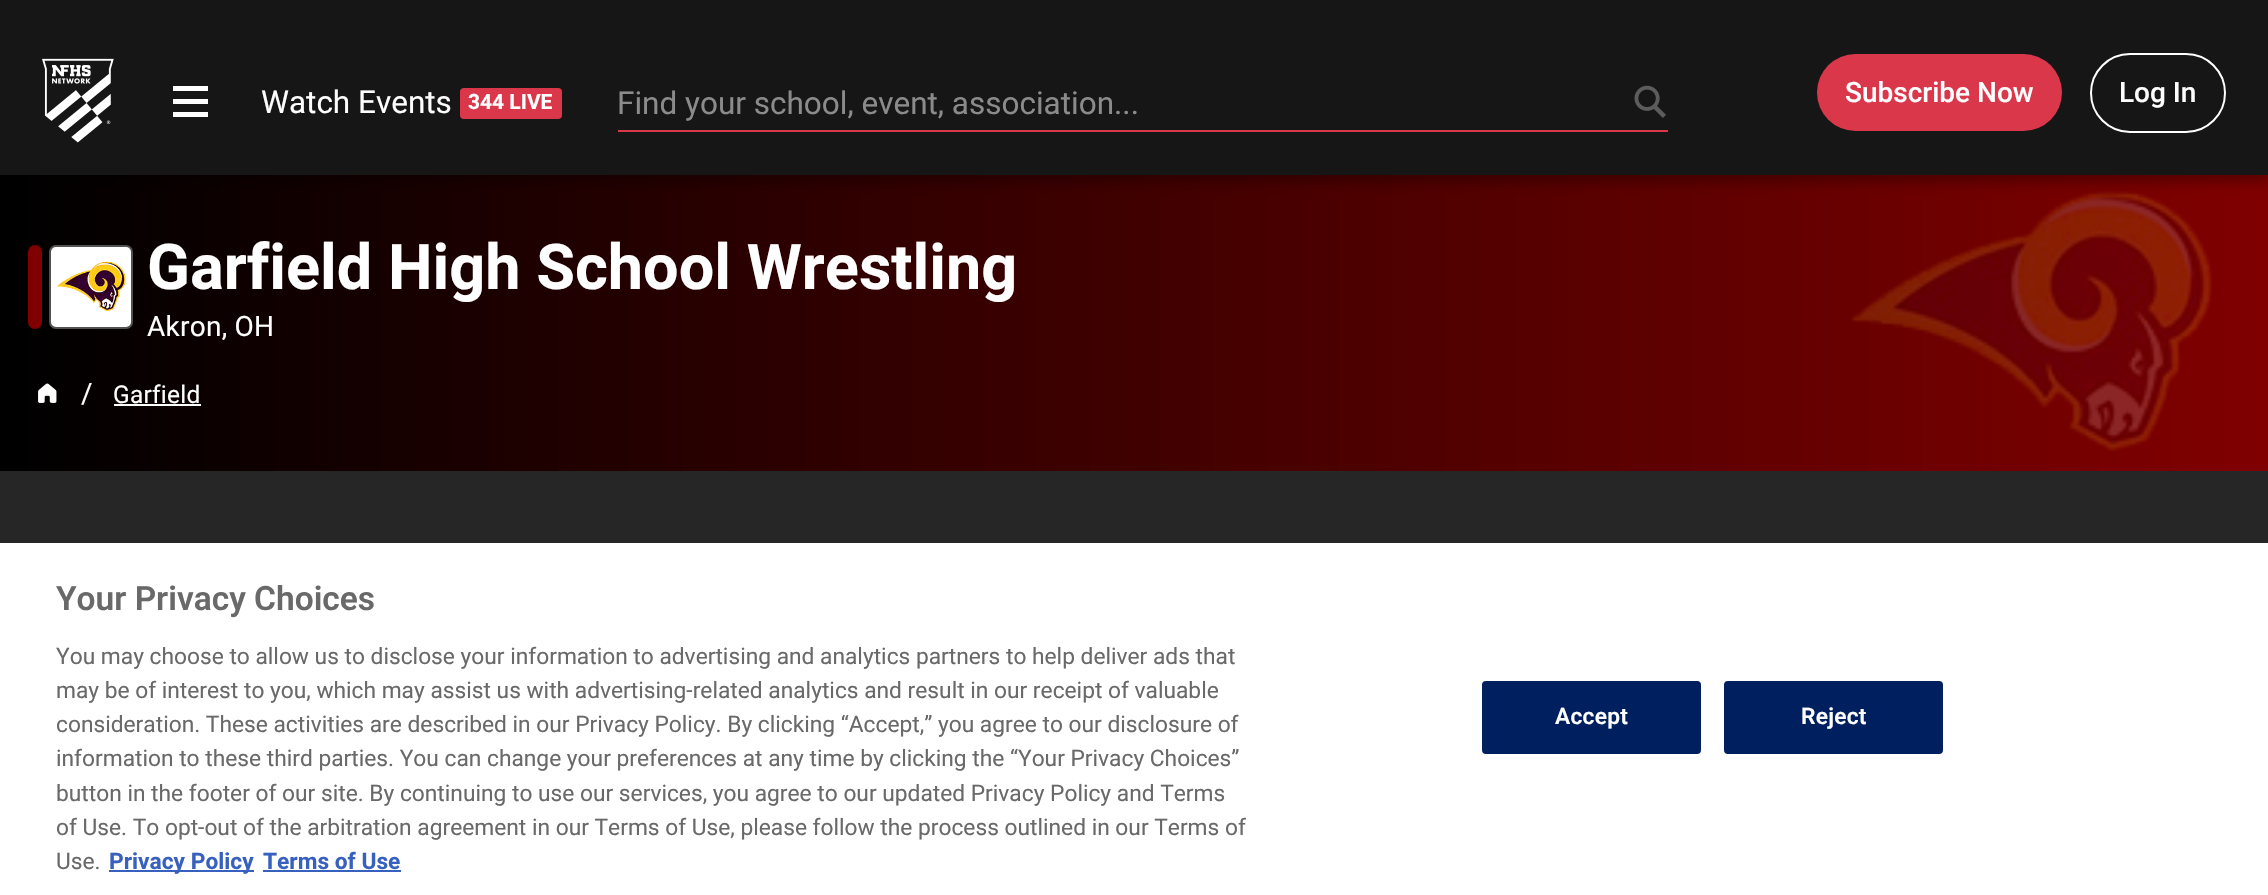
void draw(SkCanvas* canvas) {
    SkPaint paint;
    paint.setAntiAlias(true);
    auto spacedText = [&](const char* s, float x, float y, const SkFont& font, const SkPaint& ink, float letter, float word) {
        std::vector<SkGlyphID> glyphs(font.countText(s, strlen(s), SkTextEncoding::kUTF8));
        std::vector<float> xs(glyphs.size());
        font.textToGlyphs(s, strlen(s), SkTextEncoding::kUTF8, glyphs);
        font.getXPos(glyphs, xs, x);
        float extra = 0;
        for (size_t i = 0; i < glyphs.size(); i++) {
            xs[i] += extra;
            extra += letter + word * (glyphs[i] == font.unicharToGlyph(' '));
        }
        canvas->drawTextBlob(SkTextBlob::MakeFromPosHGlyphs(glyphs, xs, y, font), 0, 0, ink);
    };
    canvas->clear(0xFF262626);
    {
        const SkColor colors[] = {0xFF000000, 0xFF800000};
        const float stops[] = {0, 1};
        const SkPoint ends[] = {{0, 323}, {2268, 323}};
        paint.setShader(SkGradientShader::MakeLinear(ends, colors, stops, 2, SkTileMode::kClamp));
        paint.setAlpha(255);
    }
    canvas->drawRect(SkRect::MakeXYWH(0, 175, 2268, 296), paint);
    canvas->drawImageRect(SkImages::DeferredFromEncodedData(SkData::MakeFromFileName("img4.png")), SkRect::MakeXYWH(1851, 191, 361, 260), SkSamplingOptions());
    paint.setShader(nullptr);
    paint.setColor(0x4D000000);
    paint.setMaskFilter(SkMaskFilter::MakeBlur(kNormal_SkBlurStyle, 6));
    canvas->drawRect(SkRect::MakeXYWH(0, 7, 2268, 175), paint);
    paint.setMaskFilter(nullptr);
    paint.setColor(0xFF161616);
    canvas->drawRect(SkRect::MakeXYWH(0, 0, 2268, 175), paint);
    canvas->drawImageRect(SkImages::DeferredFromEncodedData(SkData::MakeFromFileName("img1.png")), SkRect::MakeXYWH(42, 58, 72, 85), SkSamplingOptions());
    paint.setColor(0xFFFFFFFF);
    canvas->drawPath(SkPathBuilder(SkPathFillType::kEvenOdd).moveTo(173, 86).lineTo(173, 91).lineTo(208, 91).lineTo(208, 86).close().moveTo(173, 99).lineTo(173, 104).lineTo(208, 104).lineTo(208, 99).close().moveTo(173, 112).lineTo(173, 117).lineTo(208, 117).lineTo(208, 112).close().detach(), paint);
    SkFont font1(fontMgr->matchFamilyStyle("Roboto", SkFontStyle::Normal()), 31.5f);
    font1.setSubpixel(true);
    canvas->drawString("Watch Events", 261, 113, font1, paint);
    paint.setColor(0xFFDA374A);
    canvas->drawRoundRect(SkRect::MakeXYWH(460, 88, 102, 31), 4, 4, paint);
    SkFont font2(fontMgr->matchFamilyStyle("Roboto", SkFontStyle::Bold()), 21);
    font2.setSubpixel(true);
    paint.setColor(0xFFFFFFFF);
    canvas->drawString("344 LIVE", 468, 109, font2, paint);
    paint.setColor(0xFFDA374A);
    canvas->drawRect(SkRect::MakeXYWH(618, 130, 1050, 2), paint);
    paint.setColor(0xFF8B8B8B);
    canvas->drawString("Find your school, event, association...", 617, 114, font1, paint);
    canvas->drawImageRect(SkImages::DeferredFromEncodedData(SkData::MakeFromFileName("img2.png")), SkRect::MakeXYWH(1634, 85, 32, 33), SkSamplingOptions());
    paint.setColor(0xFFDA374A);
    canvas->drawRoundRect(SkRect::MakeXYWH(1817, 54, 245, 77), 38.5f, 38.5f, paint);
    SkFont font3(fontMgr->matchFamilyStyle("Roboto", SkFontStyle(500, SkFontStyle::kNormal_Width, SkFontStyle::kUpright_Slant)), 28);
    font3.setSubpixel(true);
    paint.setColor(0xFFFFFFFF);
    canvas->drawString("Subscribe Now", 1845, 102, font3, paint);
    paint.setStyle(SkPaint::kStroke_Style);
    paint.setStrokeWidth(2);
    canvas->drawRoundRect(SkRect::MakeXYWH(2091, 54, 134, 78), 39, 39, paint);
    paint.setStyle(SkPaint::kFill_Style);
    canvas->drawString("Log In", 2119, 102, font3, paint);
    paint.setColor(0xFF800000);
    canvas->drawRoundRect(SkRect::MakeXYWH(28, 245, 14, 84), 7, 7, paint);
    paint.setColor(0xFFFFFFFF);
    canvas->drawRoundRect(SkRect::MakeXYWH(50, 246, 82, 82), 6, 6, paint);
    paint.setStyle(SkPaint::kStroke_Style);
    paint.setColor(0xFF525252);
    canvas->drawRoundRect(SkRect::MakeXYWH(50, 246, 82, 82), 6, 6, paint);
    canvas->drawImageRect(SkImages::DeferredFromEncodedData(SkData::MakeFromFileName("img3.png")), SkRect::MakeXYWH(57, 261, 69, 51), SkSamplingOptions());
    SkFont font4(fontMgr->matchFamilyStyle("Roboto", SkFontStyle::Bold()), 63);
    font4.setSubpixel(true);
    paint.setStyle(SkPaint::kFill_Style);
    paint.setColor(0xFFFFFFFF);
    canvas->drawString("Garfield High School Wrestling", 147, 289, font4, paint);
    SkFont font5(fontMgr->matchFamilyStyle("Roboto", SkFontStyle::Normal()), 28);
    font5.setSubpixel(true);
    spacedText("Akron, OH", 147, 336, font5, paint, 0.25f, 0);
    canvas->drawImageRect(SkImages::DeferredFromEncodedData(SkData::MakeFromFileName("img5.png")), SkRect::MakeXYWH(38, 383, 19, 20), SkSamplingOptions());
    canvas->drawString("/", 81, 403, font5, paint);
    SkFont font6(fontMgr->matchFamilyStyle("Roboto", SkFontStyle::Normal()), 24.5f);
    font6.setSubpixel(true);
    spacedText("Garfield", 113, 403, font6, paint, 0.25f, 0);
    canvas->drawRect(SkRect::MakeXYWH(114, 404, 87, 2), paint);
    canvas->drawRect(SkRect::MakeXYWH(0, 543, 2268, 352), paint);
    SkFont font7(fontMgr->matchFamilyStyle("Roboto", SkFontStyle(600, SkFontStyle::kNormal_Width, SkFontStyle::kUpright_Slant)), 33.5f);
    font7.setSubpixel(true);
    paint.setColor(0xFF696969);
    canvas->drawString("Your Privacy Choices", 56, 610, font7, paint);
    SkFont font8(fontMgr->matchFamilyStyle("Roboto", SkFontStyle::Normal()), 22.75f);
    font8.setSubpixel(true);
    canvas->drawString("You may choose to allow us to disclose your information to advertising and analytics partners to help deliver ads that", 56, 664, font8, paint);
    canvas->drawString("may be of interest to you, which may assist us with advertising-related analytics and result in our receipt of valuable", 56, 698, font8, paint);
    canvas->drawString("consideration. These activities are described in our Privacy Policy. By clicking “Accept,” you agree to our disclosure of", 56, 732, font8, paint);
    canvas->drawString("information to these third parties. You can change your preferences at any time by clicking the “Your Privacy Choices”", 56, 766, font8, paint);
    canvas->drawString("button in the footer of our site. By continuing to use our services, you agree to our updated Privacy Policy and Terms", 56, 801, font8, paint);
    canvas->drawString("of Use. To opt-out of the arbitration agreement in our Terms of Use, please follow the process outlined in our Terms of", 56, 835, font8, paint);
    canvas->drawString("Use.", 56, 869, font8, paint);
    paint.setColor(0xFF3860BE);
    canvas->drawRect(SkRect::MakeXYWH(109, 870, 145, 2), paint);
    SkFont font9(fontMgr->matchFamilyStyle("Roboto", SkFontStyle::Bold()), 22.75f);
    font9.setSubpixel(true);
    canvas->drawString("Privacy Policy", 109, 869, font9, paint);
    canvas->drawString("Terms of Use", 263, 869, font9, paint);
    canvas->drawRect(SkRect::MakeXYWH(263, 870, 138, 2), paint);
    paint.setColor(0xFF001F5F);
    canvas->drawRoundRect(SkRect::MakeXYWH(1483, 682, 217, 71), 3, 3, paint);
    paint.setStyle(SkPaint::kStroke_Style);
    canvas->drawRoundRect(SkRect::MakeXYWH(1483, 682, 217, 71), 3, 3, paint);
    SkFont font10(fontMgr->matchFamilyStyle("Roboto", SkFontStyle(600, SkFontStyle::kNormal_Width, SkFontStyle::kUpright_Slant)), 22.75f);
    font10.setSubpixel(true);
    paint.setStyle(SkPaint::kFill_Style);
    paint.setColor(0xFFFFFFFF);
    spacedText("Accept", 1555, 724, font10, paint, 0.25f, 0);
    paint.setColor(0xFF001F5F);
    canvas->drawRoundRect(SkRect::MakeXYWH(1725, 682, 217, 71), 3, 3, paint);
    paint.setStyle(SkPaint::kStroke_Style);
    canvas->drawRoundRect(SkRect::MakeXYWH(1725, 682, 217, 71), 3, 3, paint);
    paint.setStyle(SkPaint::kFill_Style);
    paint.setColor(0xFFFFFFFF);
    spacedText("Reject", 1801, 724, font10, paint, 0.25f, 0);
}
